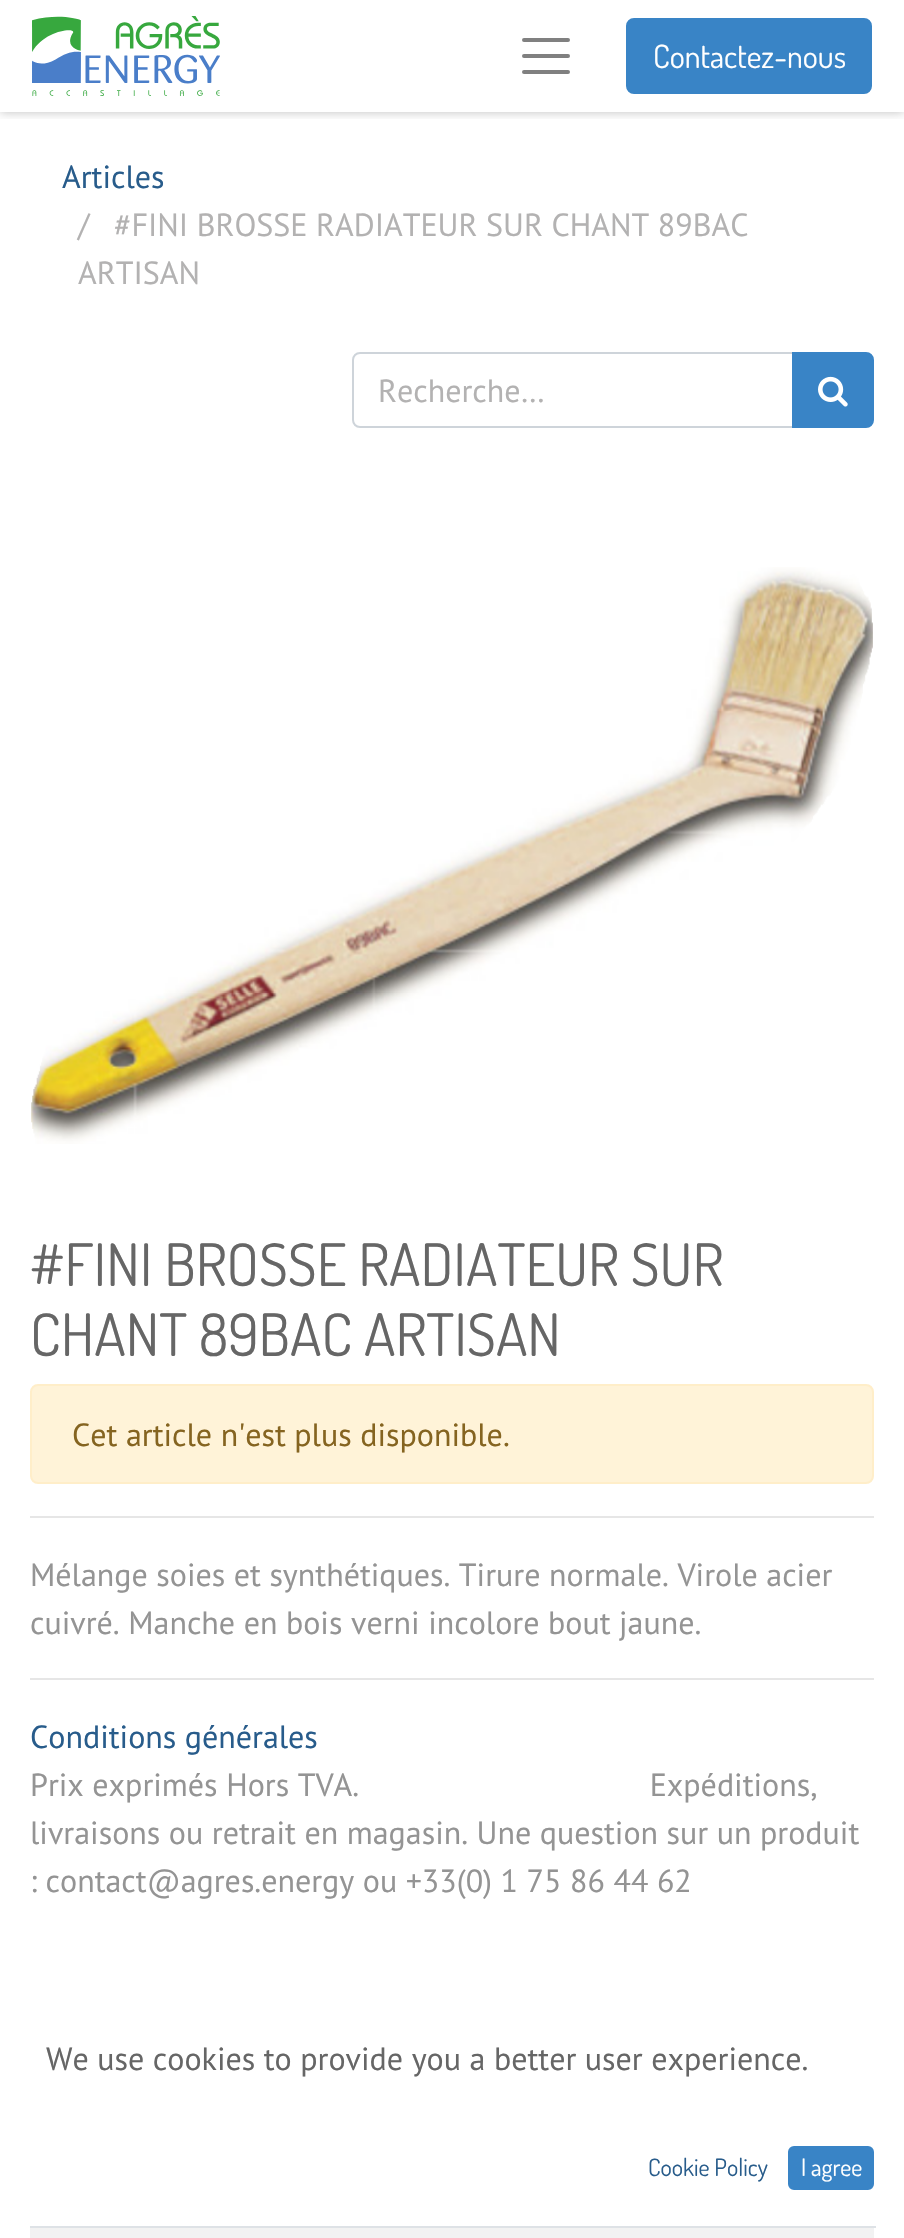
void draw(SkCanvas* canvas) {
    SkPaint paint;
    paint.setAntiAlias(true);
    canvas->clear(0xFFFFFFFF);
    canvas->save();
    canvas->clipRect(SkRect::MakeXYWH(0, 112, 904, 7));
    paint.setColor(0x40000000);
    paint.setMaskFilter(SkMaskFilter::MakeBlur(kNormal_SkBlurStyle, 5));
    canvas->drawRect(SkRect::MakeXYWH(0, 0, 904, 112), paint);
    paint.setMaskFilter(nullptr);
    canvas->restore();
    canvas->drawImageRect(SkImages::DeferredFromEncodedData(SkData::MakeFromFileName("img1.png")), SkRect::MakeXYWH(32, 16, 188, 80), SkSamplingOptions());
    paint.setStyle(SkPaint::kStroke_Style);
    paint.setStrokeWidth(4);
    paint.setStrokeCap(SkPaint::kRound_Cap);
    paint.setColor(0xFF808080);
    canvas->drawPath(SkPathBuilder().moveTo(524, 40).lineTo(568, 40).moveTo(524, 56).lineTo(568, 56).moveTo(524, 72).lineTo(568, 72).detach(), paint);
    paint.setStyle(SkPaint::kFill_Style);
    paint.setColor(0xFF3984C6);
    canvas->drawRoundRect(SkRect::MakeXYWH(627, 19, 244, 74), 7, 7, paint);
    paint.setStyle(SkPaint::kStroke_Style);
    paint.setStrokeWidth(2);
    paint.setStrokeCap(SkPaint::kButt_Cap);
    canvas->drawRoundRect(SkRect::MakeXYWH(627, 19, 244, 74), 7, 7, paint);
    SkFont font1(fontMgr->matchFamilyStyle("Dosis", SkFontStyle::Normal()), 32);
    font1.setSubpixel(true);
    paint.setStyle(SkPaint::kFill_Style);
    paint.setColor(0xFFFFFFFF);
    canvas->drawString("Contactez-nous", 653, 68, font1, paint);
    SkFont font2(fontMgr->matchFamilyStyle("PT Sans", SkFontStyle::Normal()), 32);
    font2.setSubpixel(true);
    paint.setColor(0xFF285C8B);
    canvas->drawString("Articles", 62, 188, font2, paint);
    paint.setColor(0xFFB3B2B2);
    canvas->drawString("/", 78, 236, font2, paint);
    canvas->drawString("#FINI BROSSE RADIATEUR SUR CHANT 89BAC", 114, 236, font2, paint);
    canvas->drawString("ARTISAN", 78, 284, font2, paint);
    paint.setStyle(SkPaint::kStroke_Style);
    paint.setColor(0xFFCED4DA);
    canvas->drawPath(SkPathBuilder().moveTo(360, 353).lineTo(793, 353).lineTo(793, 427).lineTo(360, 427).cubicTo(356, 427, 353, 424, 353, 420).lineTo(353, 360).cubicTo(353, 356, 356, 353, 360, 353).close().detach(), paint);
    paint.setStyle(SkPaint::kFill_Style);
    paint.setColor(0xFFB3B2B2);
    canvas->drawString("Recherche…", 378, 402, font2, paint);
    paint.setColor(0xFF3984C6);
    canvas->drawPath(SkPathBuilder().moveTo(793, 353).lineTo(866, 353).cubicTo(870, 353, 873, 356, 873, 360).lineTo(873, 420).cubicTo(873, 424, 870, 427, 866, 427).lineTo(793, 427).close().detach(), paint);
    paint.setStyle(SkPaint::kStroke_Style);
    canvas->drawPath(SkPathBuilder().moveTo(793, 353).lineTo(866, 353).cubicTo(870, 353, 873, 356, 873, 360).lineTo(873, 420).cubicTo(873, 424, 870, 427, 866, 427).lineTo(793, 427).close().detach(), paint);
    canvas->drawImageRect(SkImages::DeferredFromEncodedData(SkData::MakeFromFileName("img2.png")), SkRect::MakeXYWH(818, 376, 30, 31), SkSamplingOptions());
    canvas->drawImageRect(SkImages::DeferredFromEncodedData(SkData::MakeFromFileName("img3.png")), SkRect::MakeXYWH(31, 567, 842, 577), SkSamplingOptions());
    SkFont font3(fontMgr->matchFamilyStyle("Dosis", SkFontStyle::Normal()), 58.5f);
    font3.setSubpixel(true);
    paint.setStyle(SkPaint::kFill_Style);
    paint.setColor(0xFF666666);
    canvas->drawString("#FINI BROSSE RADIATEUR SUR", 30, 1286, font3, paint);
    canvas->drawString("CHANT 89BAC ARTISAN", 30, 1356, font3, paint);
    paint.setColor(0xFFFFF3D8);
    canvas->drawRoundRect(SkRect::MakeXYWH(31, 1385, 842, 98), 7, 7, paint);
    paint.setStyle(SkPaint::kStroke_Style);
    paint.setColor(0xFFFFEEC9);
    canvas->drawRoundRect(SkRect::MakeXYWH(31, 1385, 842, 98), 7, 7, paint);
    paint.setStyle(SkPaint::kFill_Style);
    paint.setColor(0xFF856420);
    canvas->drawString("Cet article n'est plus disponible.", 72, 1446, font2, paint);
    paint.setColor(0xFFE6E6E6);
    canvas->drawRect(SkRect::MakeXYWH(30, 1516, 844, 2), paint);
    paint.setColor(0xFF949494);
    canvas->drawString("Mélange soies et synthétiques. Tirure normale. Virole acier", 30, 1586, font2, paint);
    canvas->drawString("cuivré. Manche en bois verni incolore bout jaune.", 30, 1634, font2, paint);
    paint.setColor(0xFFE6E6E6);
    canvas->drawRect(SkRect::MakeXYWH(30, 1678, 844, 2), paint);
    paint.setColor(0xFF285C8B);
    canvas->drawString("Conditions générales", 30, 1748, font2, paint);
    paint.setColor(0xFF949494);
    canvas->drawString("Prix exprimés Hors TVA.                                  Expéditions,", 30, 1796, font2, paint);
    canvas->drawString("livraisons ou retrait en magasin. Une question sur un produit", 30, 1844, font2, paint);
    canvas->drawString(": contact@agres.energy ou +33(0) 1 75 86 44 62", 30, 1892, font2, paint);
    paint.setColor(0xFFF2F2F2);
    canvas->drawRect(SkRect::MakeXYWH(30, 2228, 844, 10), paint);
    paint.setColor(0xFFDEE2E6);
    canvas->drawRect(SkRect::MakeXYWH(30, 2226, 846, 2), paint);
    paint.setColor(0xFF666666);
    canvas->drawString("We use cookies to provide you a better user experience.", 46, 2070, font2, paint);
    SkFont font4(fontMgr->matchFamilyStyle("Dosis", SkFontStyle::Normal()), 24);
    font4.setSubpixel(true);
    paint.setColor(0xFF285C8B);
    canvas->drawString("Cookie Policy", 648, 2176, font4, paint);
    paint.setColor(0xFF3984C6);
    canvas->drawRoundRect(SkRect::MakeXYWH(789, 2147, 84, 42), 5, 5, paint);
    paint.setStyle(SkPaint::kStroke_Style);
    canvas->drawRoundRect(SkRect::MakeXYWH(789, 2147, 84, 42), 5, 5, paint);
    paint.setStyle(SkPaint::kFill_Style);
    paint.setColor(0xFFFFFFFF);
    canvas->drawString("I agree", 801, 2176, font4, paint);
}
